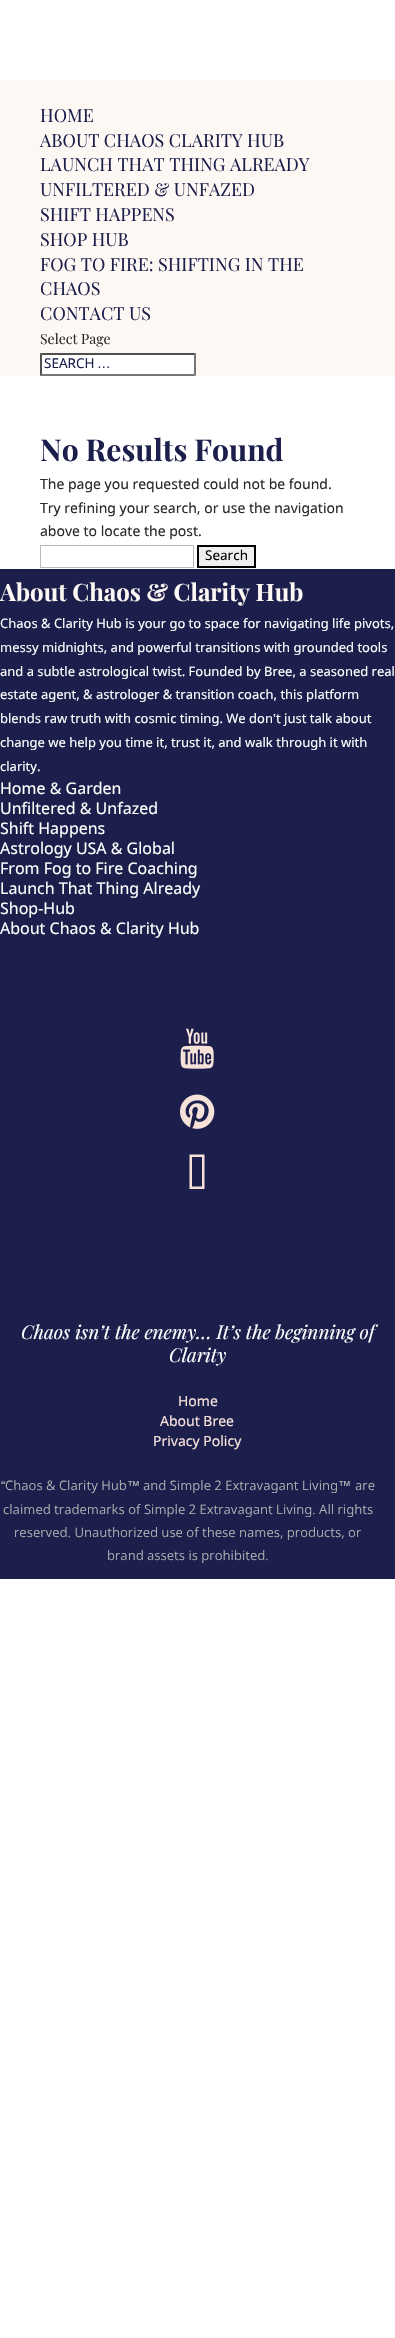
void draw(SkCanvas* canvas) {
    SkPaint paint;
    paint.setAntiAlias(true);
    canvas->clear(0xFFFFFFFF);
    paint.setColor(0xFFFDF8F3);
    canvas->drawRect(SkRect::MakeXYWH(0, 80, 395, 296), paint);
    SkFont font1(fontMgr->matchFamilyStyle("Playfair Display", SkFontStyle::Normal()), 18);
    font1.setSubpixel(true);
    paint.setColor(0xFF1C1F4C);
    canvas->drawString("HOME", 40, 122, font1, paint);
    canvas->drawString("ABOUT CHAOS CLARITY HUB", 40, 147, font1, paint);
    canvas->drawString("LAUNCH THAT THING ALREADY", 40, 171, font1, paint);
    canvas->drawString("UNFILTERED & UNFAZED", 40, 196, font1, paint);
    canvas->drawString("SHIFT HAPPENS", 40, 221, font1, paint);
    canvas->drawString("SHOP HUB", 40, 246, font1, paint);
    canvas->drawString("FOG TO FIRE: SHIFTING IN THE", 40, 271, font1, paint);
    canvas->drawString("CHAOS", 40, 295, font1, paint);
    canvas->drawString("CONTACT US", 40, 320, font1, paint);
    SkFont font2(fontMgr->matchFamilyStyle("Playfair Display", SkFontStyle::Normal()), 14);
    font2.setSubpixel(true);
    paint.setColor(0xFF2A2A2A);
    canvas->drawString("Select Page", 40, 344, font2, paint);
    paint.setColor(0xFFFFFFFF);
    canvas->drawRect(SkRect::MakeXYWH(40, 353, 156, 23), paint);
    paint.setColor(0xFF4F4F4F);
    canvas->drawPath(SkPathBuilder().moveTo(40, 353).lineTo(196, 353).lineTo(194, 355).lineTo(42, 355).close().detach(), paint);
    paint.setColor(0xFF767676);
    canvas->drawPath(SkPathBuilder().moveTo(196, 353).lineTo(196, 376).lineTo(194, 374).lineTo(194, 355).close().detach(), paint);
    canvas->drawPath(SkPathBuilder().moveTo(196, 376).lineTo(40, 376).lineTo(42, 374).lineTo(194, 374).close().detach(), paint);
    paint.setColor(0xFF4F4F4F);
    canvas->drawPath(SkPathBuilder().moveTo(40, 376).lineTo(40, 353).lineTo(42, 355).lineTo(42, 374).close().detach(), paint);
    SkFont font3(fontMgr->matchFamilyStyle("Nokora", SkFontStyle::Normal()), 13.5f);
    font3.setSubpixel(true);
    paint.setColor(0xFF1C1F4C);
    canvas->drawString("SEARCH", 44, 368, font3, paint);
    SkFont font4(fontMgr->matchFamilyStyle("Liberation Sans", SkFontStyle::Normal()), 13.5f);
    font4.setSubpixel(true);
    canvas->drawString("…", 97, 368, font4, paint);
    SkFont font5(fontMgr->matchFamilyStyle("Playfair Display", SkFontStyle::Bold()), 30);
    font5.setSubpixel(true);
    canvas->drawString("No Results Found", 40, 461, font5, paint);
    SkFont font6(fontMgr->matchFamilyStyle("Nokora", SkFontStyle::Normal()), 14);
    font6.setSubpixel(true);
    paint.setColor(0xFF2A2A2A);
    canvas->drawString("The page you requested could not be found.", 40, 489, font6, paint);
    canvas->drawString("Try refining your search, or use the navigation", 40, 513, font6, paint);
    canvas->drawString("above to locate the post.", 40, 536, font6, paint);
    paint.setStyle(SkPaint::kStroke_Style);
    paint.setStrokeWidth(1);
    paint.setColor(0xFFBBBBBB);
    canvas->drawRect(SkRect::MakeXYWH(40.5f, 545.5f, 153, 22), paint);
    paint.setStyle(SkPaint::kFill_Style);
    paint.setColor(0xFFEFEFEF);
    canvas->drawRect(SkRect::MakeXYWH(198, 546, 57, 21), paint);
    paint.setStyle(SkPaint::kStroke_Style);
    paint.setStrokeWidth(2);
    paint.setColor(0xFF000000);
    canvas->drawRect(SkRect::MakeXYWH(198, 546, 57, 21), paint);
    paint.setStyle(SkPaint::kFill_Style);
    canvas->drawString("Search", 205, 560, font3, paint);
    paint.setColor(0xFF1C1F4C);
    canvas->drawRect(SkRect::MakeXYWH(0, 569, 395, 1010), paint);
    SkFont font7(fontMgr->matchFamilyStyle("Playfair Display", SkFontStyle::Bold()), 24);
    font7.setSubpixel(true);
    paint.setColor(0xFFFDF8F3);
    canvas->drawString("About Chaos & Clarity Hub", 0, 601, font7, paint);
    SkFont font8(fontMgr->matchFamilyStyle("Nokora", SkFontStyle::Normal()), 13);
    font8.setSubpixel(true);
    paint.setColor(0xFFFFFFFF);
    canvas->drawString("Chaos & Clarity Hub is your go to space for navigating life pivots,", 0, 628, font8, paint);
    canvas->drawString("messy midnights, and powerful transitions with grounded tools", 0, 652, font8, paint);
    canvas->drawString("and a subtle astrological twist. Founded by Bree, a seasoned real", 0, 676, font8, paint);
    canvas->drawString("estate agent, & astrologer & transition coach, this platform", 0, 699, font8, paint);
    canvas->drawString("blends raw truth with cosmic timing. We don", 0, 723, font8, paint);
    SkFont font9(fontMgr->matchFamilyStyle("Liberation Sans", SkFontStyle::Normal()), 13);
    font9.setSubpixel(true);
    canvas->drawString("’", 273, 723, font9, paint);
    canvas->drawString("t just talk about", 276, 723, font8, paint);
    canvas->drawString("change we help you time it, trust it, and walk through it with", 0, 747, font8, paint);
    canvas->drawString("clarity.", 0, 771, font8, paint);
    SkFont font10(fontMgr->matchFamilyStyle("Nokora", SkFontStyle::Normal()), 16);
    font10.setSubpixel(true);
    canvas->drawString("Home & Garden", 0, 794, font10, paint);
    canvas->drawString("Unfiltered & Unfazed", 0, 814, font10, paint);
    canvas->drawString("Shift Happens", 0, 834, font10, paint);
    canvas->drawString("Astrology USA & Global", 0, 854, font10, paint);
    canvas->drawString("From Fog to Fire Coaching", 0, 874, font10, paint);
    canvas->drawString("Launch That Thing Already", 0, 894, font10, paint);
    canvas->drawString("Shop-Hub", 0, 914, font10, paint);
    canvas->drawString("About Chaos & Clarity Hub", 0, 934, font10, paint);
    canvas->drawImageRect(SkImages::DeferredFromEncodedData(SkData::MakeFromFileName("img1.png")), SkRect::MakeXYWH(180, 1028, 34, 41), SkSamplingOptions());
    canvas->drawImageRect(SkImages::DeferredFromEncodedData(SkData::MakeFromFileName("img2.png")), SkRect::MakeXYWH(180, 1094, 35, 35), SkSamplingOptions());
    paint.setColor(0xFFF7E2DA);
    canvas->drawPath(SkPathBuilder().moveTo(192, 1186.5f).lineTo(192, 1157).lineTo(202, 1157).lineTo(202, 1186.5f).close().moveTo(189.5f, 1189).lineTo(204.5f, 1189).lineTo(204.5f, 1154.5f).lineTo(189.5f, 1154.5f).close().detach(), paint);
    SkFont font11(fontMgr->matchFamilyStyle("Playfair Display", SkFontStyle::Italic()), 19);
    font11.setSubpixel(true);
    paint.setColor(0xFFFFFFFF);
    canvas->drawString("Chaos isn’t the enemy… It’s the beginning of", 21, 1339, font11, paint);
    canvas->drawString("Clarity", 169, 1362, font11, paint);
    paint.setColor(0xFFF7E2DA);
    canvas->drawString("Home", 178, 1406, font6, paint);
    canvas->drawString("About Bree", 160, 1426, font6, paint);
    canvas->drawString("Privacy Policy", 153, 1446, font6, paint);
    paint.setColor(0xFFB7B7B7);
    canvas->drawString("“", 1, 1490, font9, paint);
    SkFont font12(fontMgr->matchFamilyStyle("Nokora", SkFontStyle(300, SkFontStyle::kNormal_Width, SkFontStyle::kUpright_Slant)), 13);
    font12.setSubpixel(true);
    canvas->drawString("Chaos & Clarity Hub", 5, 1490, font12, paint);
    canvas->drawString("™", 127, 1490, font9, paint);
    canvas->drawString("and Simple 2 Extravagant Living", 143, 1490, font12, paint);
    canvas->drawString("™", 338, 1490, font9, paint);
    canvas->drawString("are", 355, 1490, font12, paint);
    canvas->drawString("claimed trademarks of Simple 2 Extravagant Living. All rights", 3, 1514, font12, paint);
    canvas->drawString("reserved. Unauthorized use of these names, products, or", 14, 1537, font12, paint);
    canvas->drawString("brand assets is prohibited.", 107, 1560, font12, paint);
}
